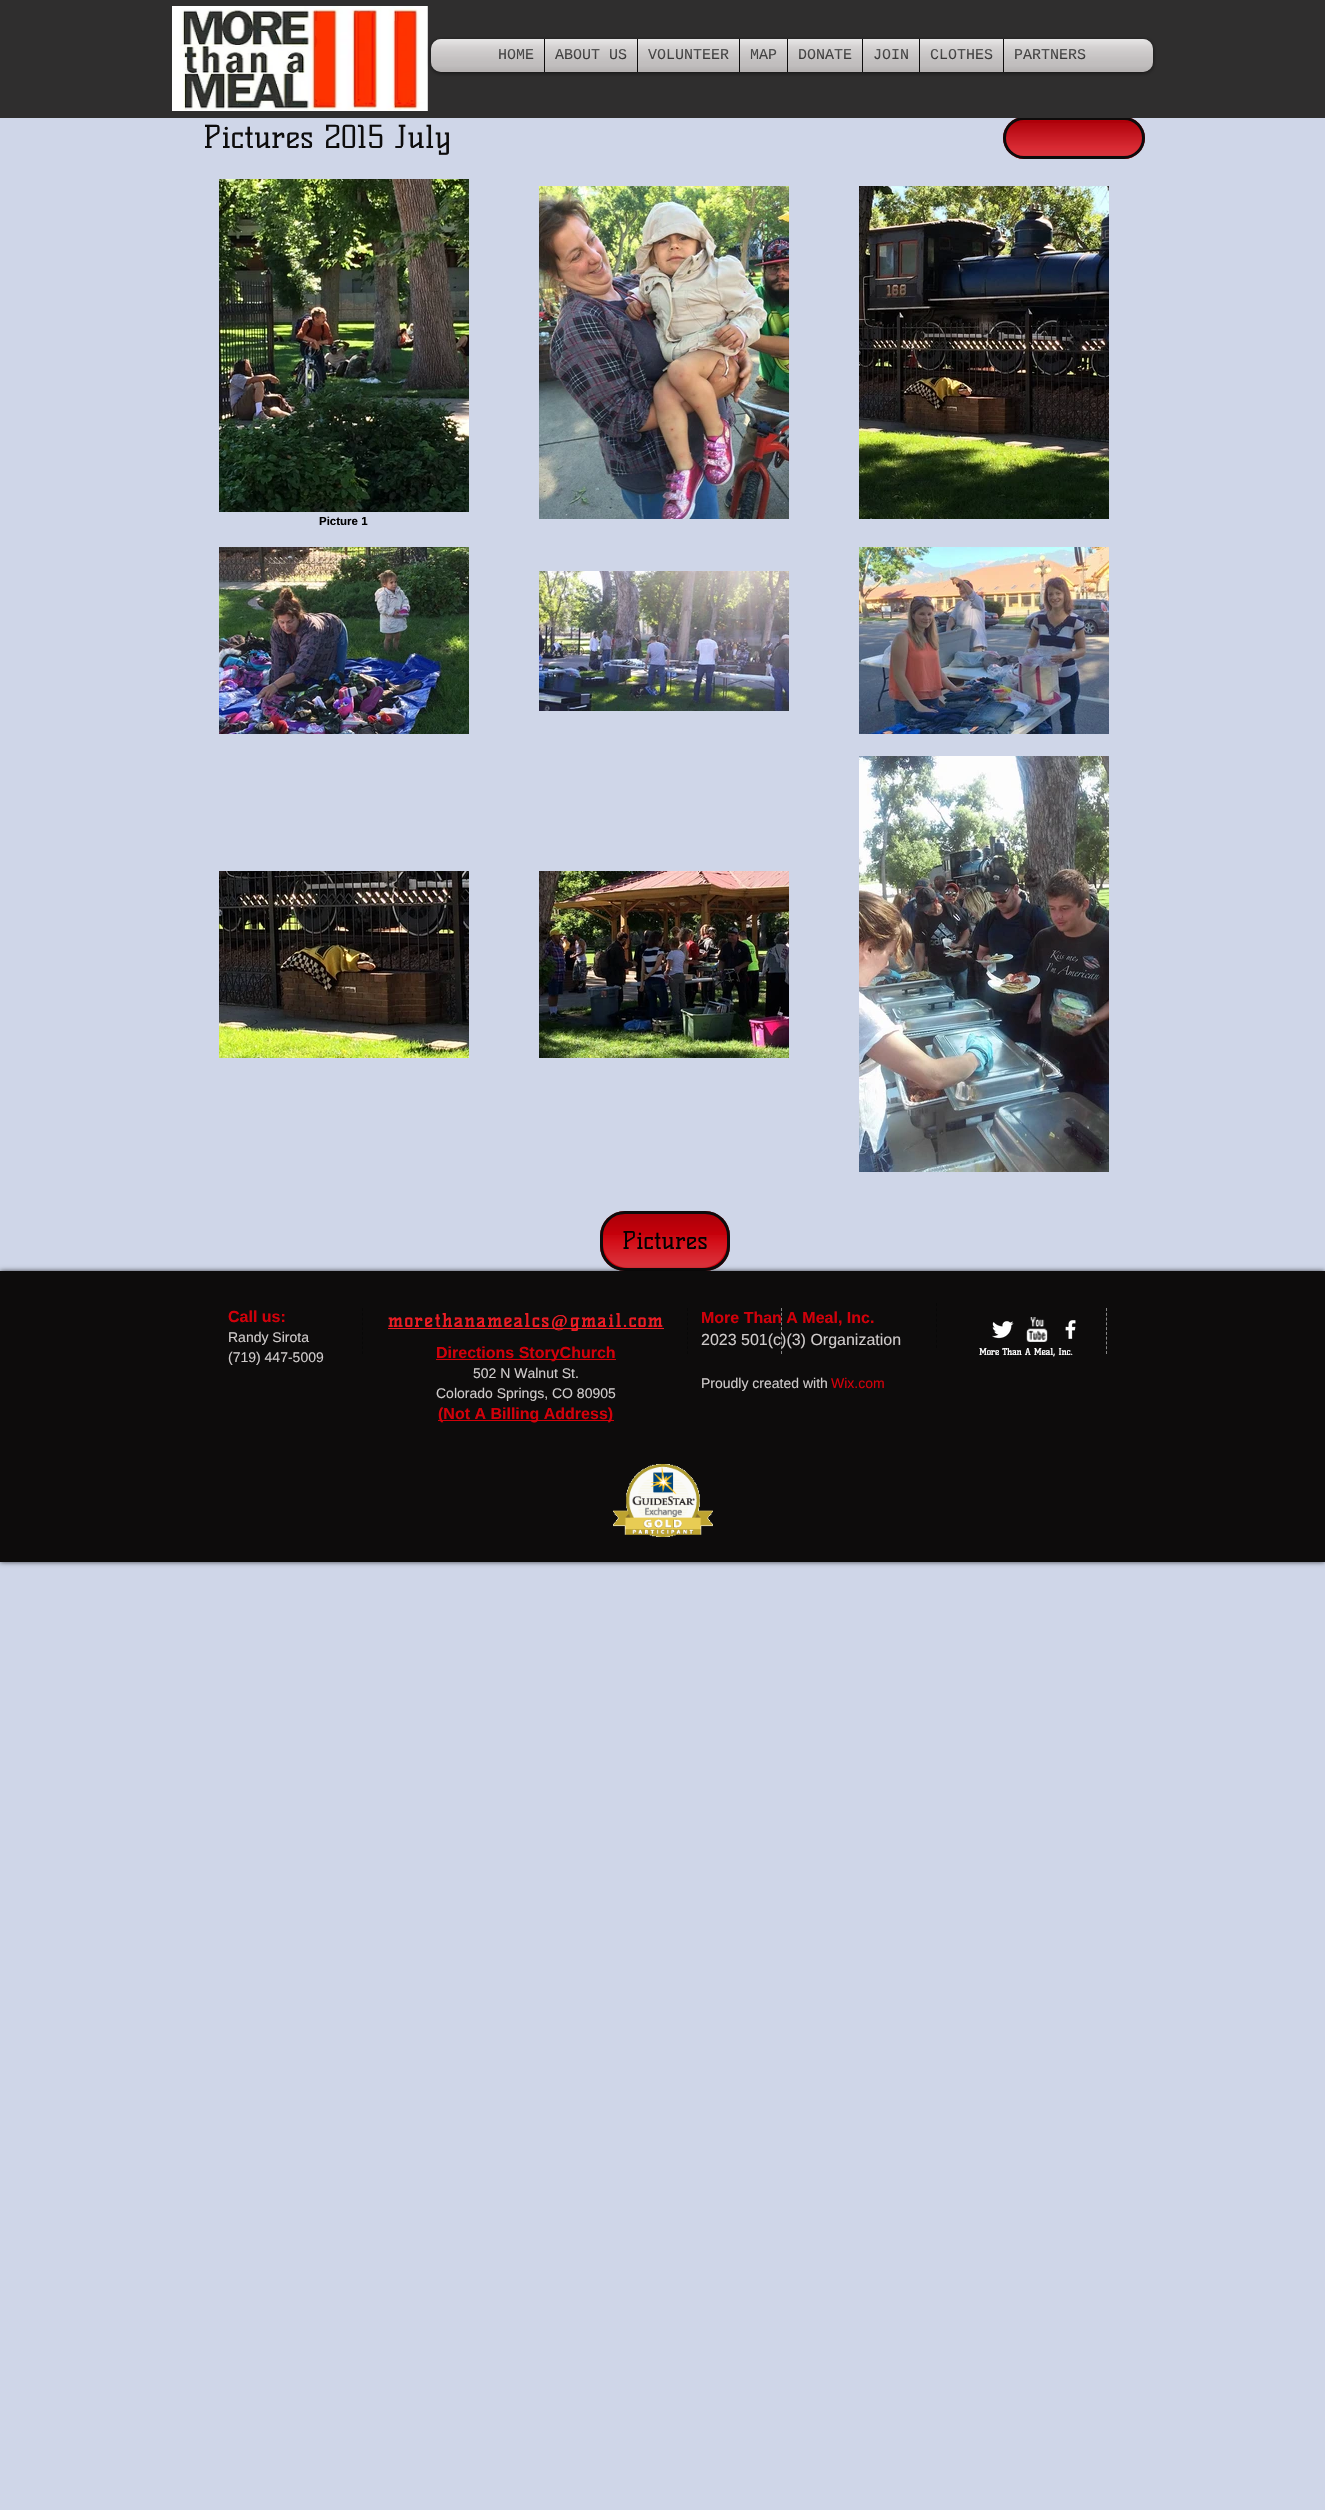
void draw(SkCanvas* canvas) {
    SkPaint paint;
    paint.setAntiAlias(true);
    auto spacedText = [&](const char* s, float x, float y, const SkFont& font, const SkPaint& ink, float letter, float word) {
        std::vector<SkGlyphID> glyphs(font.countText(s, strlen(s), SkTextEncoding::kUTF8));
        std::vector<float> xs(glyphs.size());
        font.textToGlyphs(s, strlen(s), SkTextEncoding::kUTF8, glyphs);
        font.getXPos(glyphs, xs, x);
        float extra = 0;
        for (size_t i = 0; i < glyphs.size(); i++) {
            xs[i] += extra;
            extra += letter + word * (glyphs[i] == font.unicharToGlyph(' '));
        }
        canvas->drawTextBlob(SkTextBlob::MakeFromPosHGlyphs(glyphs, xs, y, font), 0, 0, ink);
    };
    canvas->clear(0xFFCFD6E8);
    paint.setColor(0xFFD1000A);
    canvas->drawRoundRect(SkRect::MakeXYWH(1003, 117, 142, 42), 21, 21, paint);
    canvas->drawImageRect(SkImages::DeferredFromEncodedData(SkData::MakeFromFileName("img20.png")), SkRect::MakeXYWH(1003, 120, 142, 26), SkSamplingOptions());
    paint.setStyle(SkPaint::kStroke_Style);
    paint.setStrokeWidth(3);
    paint.setColor(0xFF0D0C0C);
    canvas->drawRoundRect(SkRect::MakeXYWH(1004.5f, 118.5f, 139, 39), 19.5f, 19.5f, paint);
    paint.setStyle(SkPaint::kFill_Style);
    paint.setColor(0xFF2F2E2E);
    canvas->drawRect(SkRect::MakeXYWH(0, 0, 1325, 118), paint);
    canvas->drawImageRect(SkImages::DeferredFromEncodedData(SkData::MakeFromFileName("img1.png")), SkRect::MakeXYWH(172, 6, 256, 105), SkSamplingOptions());
    paint.setColor(0x99000000);
    paint.setMaskFilter(SkMaskFilter::MakeBlur(kNormal_SkBlurStyle, 2));
    canvas->drawRoundRect(SkRect::MakeXYWH(431, 40, 722, 33), 10, 10, paint);
    paint.setMaskFilter(nullptr);
    paint.setColor(0xFFCFCBCB);
    canvas->drawRoundRect(SkRect::MakeXYWH(431, 39, 722, 33), 10, 10, paint);
    canvas->drawImageRect(SkImages::DeferredFromEncodedData(SkData::MakeFromFileName("img2.png")), SkRect::MakeXYWH(431, 39, 722, 33), SkSamplingOptions());
    canvas->drawImageRect(SkImages::DeferredFromEncodedData(SkData::MakeFromFileName("img3.png")), SkRect::MakeXYWH(431, 39, 722, 33), SkSamplingOptions());
    canvas->drawRect(SkRect::MakeXYWH(488, 39, 56, 33), paint);
    SkFont font1(fontMgr->matchFamilyStyle("Liberation Mono", SkFontStyle::Normal()), 15);
    font1.setSubpixel(true);
    paint.setColor(0xFF0D0C0C);
    canvas->drawString("HOME", 498, 59, font1, paint);
    canvas->drawImageRect(SkImages::DeferredFromEncodedData(SkData::MakeFromFileName("img4.png")), SkRect::MakeXYWH(488, 39, 56, 33), SkSamplingOptions());
    canvas->drawImageRect(SkImages::DeferredFromEncodedData(SkData::MakeFromFileName("img5.png")), SkRect::MakeXYWH(488, 39, 56, 33), SkSamplingOptions());
    paint.setColor(0xFFCFCBCB);
    canvas->drawRect(SkRect::MakeXYWH(545, 39, 92, 33), paint);
    paint.setColor(0xFF0D0C0C);
    canvas->drawRect(SkRect::MakeXYWH(544, 39, 1, 33), paint);
    canvas->drawString("ABOUT US", 555, 59, font1, paint);
    canvas->drawImageRect(SkImages::DeferredFromEncodedData(SkData::MakeFromFileName("img6.png")), SkRect::MakeXYWH(545, 39, 92, 33), SkSamplingOptions());
    canvas->drawImageRect(SkImages::DeferredFromEncodedData(SkData::MakeFromFileName("img7.png")), SkRect::MakeXYWH(545, 39, 92, 33), SkSamplingOptions());
    paint.setColor(0xFFCFCBCB);
    canvas->drawRect(SkRect::MakeXYWH(638, 39, 101, 33), paint);
    paint.setColor(0xFF0D0C0C);
    canvas->drawRect(SkRect::MakeXYWH(637, 39, 1, 33), paint);
    canvas->drawString("VOLUNTEER", 648, 59, font1, paint);
    canvas->drawImageRect(SkImages::DeferredFromEncodedData(SkData::MakeFromFileName("img8.png")), SkRect::MakeXYWH(638, 39, 101, 33), SkSamplingOptions());
    canvas->drawImageRect(SkImages::DeferredFromEncodedData(SkData::MakeFromFileName("img9.png")), SkRect::MakeXYWH(638, 39, 101, 33), SkSamplingOptions());
    paint.setColor(0xFFCFCBCB);
    canvas->drawRect(SkRect::MakeXYWH(740, 39, 47, 33), paint);
    paint.setColor(0xFF0D0C0C);
    canvas->drawRect(SkRect::MakeXYWH(739, 39, 1, 33), paint);
    canvas->drawString("MAP", 750, 59, font1, paint);
    canvas->drawImageRect(SkImages::DeferredFromEncodedData(SkData::MakeFromFileName("img10.png")), SkRect::MakeXYWH(740, 39, 47, 33), SkSamplingOptions());
    canvas->drawImageRect(SkImages::DeferredFromEncodedData(SkData::MakeFromFileName("img11.png")), SkRect::MakeXYWH(740, 39, 47, 33), SkSamplingOptions());
    paint.setColor(0xFFCFCBCB);
    canvas->drawRect(SkRect::MakeXYWH(788, 39, 74, 33), paint);
    paint.setColor(0xFF0D0C0C);
    canvas->drawRect(SkRect::MakeXYWH(787, 39, 1, 33), paint);
    canvas->drawString("DONATE", 798, 59, font1, paint);
    canvas->drawImageRect(SkImages::DeferredFromEncodedData(SkData::MakeFromFileName("img12.png")), SkRect::MakeXYWH(788, 39, 74, 33), SkSamplingOptions());
    canvas->drawImageRect(SkImages::DeferredFromEncodedData(SkData::MakeFromFileName("img13.png")), SkRect::MakeXYWH(788, 39, 74, 33), SkSamplingOptions());
    paint.setColor(0xFFCFCBCB);
    canvas->drawRect(SkRect::MakeXYWH(863, 39, 56, 33), paint);
    paint.setColor(0xFF0D0C0C);
    canvas->drawRect(SkRect::MakeXYWH(862, 39, 1, 33), paint);
    canvas->drawString("JOIN", 873, 59, font1, paint);
    canvas->drawImageRect(SkImages::DeferredFromEncodedData(SkData::MakeFromFileName("img14.png")), SkRect::MakeXYWH(863, 39, 56, 33), SkSamplingOptions());
    canvas->drawImageRect(SkImages::DeferredFromEncodedData(SkData::MakeFromFileName("img15.png")), SkRect::MakeXYWH(863, 39, 56, 33), SkSamplingOptions());
    paint.setColor(0xFFCFCBCB);
    canvas->drawRect(SkRect::MakeXYWH(920, 39, 83, 33), paint);
    paint.setColor(0xFF0D0C0C);
    canvas->drawRect(SkRect::MakeXYWH(919, 39, 1, 33), paint);
    canvas->drawString("CLOTHES", 930, 59, font1, paint);
    canvas->drawImageRect(SkImages::DeferredFromEncodedData(SkData::MakeFromFileName("img16.png")), SkRect::MakeXYWH(920, 39, 83, 33), SkSamplingOptions());
    canvas->drawImageRect(SkImages::DeferredFromEncodedData(SkData::MakeFromFileName("img17.png")), SkRect::MakeXYWH(920, 39, 83, 33), SkSamplingOptions());
    paint.setColor(0xFFCFCBCB);
    canvas->drawRect(SkRect::MakeXYWH(1004, 39, 92, 33), paint);
    paint.setColor(0xFF0D0C0C);
    canvas->drawRect(SkRect::MakeXYWH(1003, 39, 1, 33), paint);
    canvas->drawString("PARTNERS", 1014, 59, font1, paint);
    canvas->drawImageRect(SkImages::DeferredFromEncodedData(SkData::MakeFromFileName("img18.png")), SkRect::MakeXYWH(1004, 39, 92, 33), SkSamplingOptions());
    canvas->drawImageRect(SkImages::DeferredFromEncodedData(SkData::MakeFromFileName("img19.png")), SkRect::MakeXYWH(1004, 39, 92, 33), SkSamplingOptions());
    SkFont font2(fontMgr->matchFamilyStyle("Kelly Slab", SkFontStyle::Normal()), 31);
    font2.setSubpixel(true);
    canvas->drawString("Pictures 2015 July", 203, 148, font2, paint);
    canvas->drawImageRect(SkImages::DeferredFromEncodedData(SkData::MakeFromFileName("img21.png")), SkRect::MakeXYWH(1006, 123, 136, 33), SkSamplingOptions());
    canvas->drawImageRect(SkImages::DeferredFromEncodedData(SkData::MakeFromFileName("img22.png")), SkRect::MakeXYWH(539, 186, 250, 333), SkSamplingOptions());
    canvas->drawImageRect(SkImages::DeferredFromEncodedData(SkData::MakeFromFileName("img23.png")), SkRect::MakeXYWH(859, 186, 250, 333), SkSamplingOptions());
    canvas->drawImageRect(SkImages::DeferredFromEncodedData(SkData::MakeFromFileName("img24.png")), SkRect::MakeXYWH(219, 179, 250, 333), SkSamplingOptions());
    SkFont font3(fontMgr->matchFamilyStyle("Liberation Sans", SkFontStyle::Bold()), 11.5f);
    font3.setSubpixel(true);
    paint.setColor(0xFF000000);
    canvas->drawString("Picture 1", 319, 525, font3, paint);
    canvas->drawImageRect(SkImages::DeferredFromEncodedData(SkData::MakeFromFileName("img25.png")), SkRect::MakeXYWH(219, 547, 250, 187), SkSamplingOptions());
    canvas->drawImageRect(SkImages::DeferredFromEncodedData(SkData::MakeFromFileName("img26.png")), SkRect::MakeXYWH(539, 571, 250, 140), SkSamplingOptions());
    canvas->drawImageRect(SkImages::DeferredFromEncodedData(SkData::MakeFromFileName("img27.png")), SkRect::MakeXYWH(859, 547, 250, 187), SkSamplingOptions());
    canvas->drawImageRect(SkImages::DeferredFromEncodedData(SkData::MakeFromFileName("img28.png")), SkRect::MakeXYWH(219, 871, 250, 187), SkSamplingOptions());
    canvas->drawImageRect(SkImages::DeferredFromEncodedData(SkData::MakeFromFileName("img29.png")), SkRect::MakeXYWH(539, 871, 250, 187), SkSamplingOptions());
    canvas->drawImageRect(SkImages::DeferredFromEncodedData(SkData::MakeFromFileName("img30.png")), SkRect::MakeXYWH(859, 756, 250, 416), SkSamplingOptions());
    paint.setColor(0xFFD1000A);
    canvas->drawRoundRect(SkRect::MakeXYWH(600, 1211, 130, 60), 25, 25, paint);
    canvas->drawImageRect(SkImages::DeferredFromEncodedData(SkData::MakeFromFileName("img31.png")), SkRect::MakeXYWH(600, 1214, 130, 26), SkSamplingOptions());
    paint.setStyle(SkPaint::kStroke_Style);
    paint.setColor(0xFF0D0C0C);
    canvas->drawRoundRect(SkRect::MakeXYWH(601.5f, 1212.5f, 127, 57), 23.5f, 23.5f, paint);
    canvas->drawImageRect(SkImages::DeferredFromEncodedData(SkData::MakeFromFileName("img32.png")), SkRect::MakeXYWH(603, 1235, 124, 33), SkSamplingOptions());
    SkFont font4(fontMgr->matchFamilyStyle("Kelly Slab", SkFontStyle::Normal()), 24);
    font4.setSubpixel(true);
    paint.setStyle(SkPaint::kFill_Style);
    paint.setColor(0xFF000000);
    canvas->drawString("Pictures", 622, 1249, font4, paint);
    paint.setColor(0xB3000000);
    paint.setMaskFilter(SkMaskFilter::MakeBlur(kNormal_SkBlurStyle, 2.5f));
    canvas->drawRect(SkRect::MakeXYWH(0, 1271, 1325, 291), paint);
    paint.setMaskFilter(nullptr);
    paint.setColor(0xFF0D0C0C);
    canvas->drawRect(SkRect::MakeXYWH(0, 1271, 1325, 291), paint);
    paint.setStyle(SkPaint::kStroke_Style);
    paint.setStrokeWidth(1);
    paint.setColor(0xFF868686);
    paint.setPathEffect(SkDashPathEffect::Make({{3, 1.78f}}, 0));
    canvas->drawPath(SkPathBuilder().moveTo(781.5f, 1308).lineTo(781.5f, 1354).detach(), paint);
    paint.setPathEffect(nullptr);
    paint.setColor(0xFF080808);
    paint.setPathEffect(SkDashPathEffect::Make({{3, 1.78f}}, 0));
    canvas->drawPath(SkPathBuilder().moveTo(362.5f, 1308).lineTo(362.5f, 1354).detach(), paint);
    paint.setPathEffect(nullptr);
    paint.setPathEffect(SkDashPathEffect::Make({{3, 2.25f}}, 0));
    canvas->drawPath(SkPathBuilder().moveTo(936.5f, 1303).lineTo(936.5f, 1348).detach(), paint);
    paint.setPathEffect(nullptr);
    SkFont font5(fontMgr->matchFamilyStyle("Liberation Sans", SkFontStyle::Bold()), 16);
    font5.setSubpixel(true);
    paint.setStyle(SkPaint::kFill_Style);
    paint.setColor(0xFFD1000A);
    canvas->drawString("Call us:", 228, 1322, font5, paint);
    SkFont font6(fontMgr->matchFamilyStyle("Liberation Sans", SkFontStyle::Normal()), 14);
    font6.setSubpixel(true);
    paint.setColor(0xFFCFCBCB);
    canvas->drawString("Randy Sirota", 228, 1342, font6, paint);
    canvas->drawString("(719) 447-5009", 228, 1362, font6, paint);
    paint.setStyle(SkPaint::kStroke_Style);
    paint.setColor(0xFF868686);
    paint.setPathEffect(SkDashPathEffect::Make({{3, 1.78f}}, 0));
    canvas->drawPath(SkPathBuilder().moveTo(1106.5f, 1308).lineTo(1106.5f, 1354).detach(), paint);
    paint.setPathEffect(nullptr);
    paint.setColor(0xFF080808);
    paint.setPathEffect(SkDashPathEffect::Make({{3, 1.78f}}, 0));
    canvas->drawPath(SkPathBuilder().moveTo(687.5f, 1308).lineTo(687.5f, 1354).detach(), paint);
    paint.setPathEffect(nullptr);
    SkFont font7(fontMgr->matchFamilyStyle("Kelly Slab", SkFontStyle::Bold()), 18);
    font7.setSubpixel(true);
    paint.setStyle(SkPaint::kFill_Style);
    paint.setColor(0xFFED1C24);
    spacedText("morethanamealcs", 388, 1327, font7, paint, 1.75f, 0);
    canvas->drawRect(SkRect::MakeXYWH(388, 1328, 276, 1), paint);
    SkFont font8(fontMgr->matchFamilyStyle("Liberation Serif", SkFontStyle::Bold()), 18);
    font8.setSubpixel(true);
    spacedText("@", 551, 1327, font8, paint, 1.75f, 0);
    spacedText("gmail.com", 570, 1327, font7, paint, 1.75f, 0);
    paint.setColor(0xFFD1000A);
    canvas->drawRect(SkRect::MakeXYWH(436, 1359, 180, 1), paint);
    canvas->drawString("Directions StoryChurch", 436, 1358, font5, paint);
    paint.setColor(0xFFCFCBCB);
    canvas->drawString("502 N Walnut St.", 473, 1378, font6, paint);
    canvas->drawString("Colorado Springs, CO 80905", 436, 1398, font6, paint);
    paint.setColor(0xFFD1000A);
    canvas->drawRect(SkRect::MakeXYWH(438, 1420, 176, 1), paint);
    canvas->drawString("(Not A Billing Address)", 438, 1419, font5, paint);
    canvas->drawString("More Than A Meal, Inc.", 701, 1323, font5, paint);
    SkFont font9(fontMgr->matchFamilyStyle("Liberation Sans", SkFontStyle::Normal()), 16);
    font9.setSubpixel(true);
    paint.setColor(0xFFCFCBCB);
    canvas->drawString("2023 501(c)(3) Organization", 701, 1345, font9, paint);
    canvas->drawString("Proudly created with", 701, 1388, font6, paint);
    paint.setColor(0xFFD1000A);
    canvas->drawString("Wix.com", 831, 1388, font6, paint);
    canvas->drawImageRect(SkImages::DeferredFromEncodedData(SkData::MakeFromFileName("img33.png")), SkRect::MakeXYWH(992, 1321, 22, 18), SkSamplingOptions());
    canvas->drawImageRect(SkImages::DeferredFromEncodedData(SkData::MakeFromFileName("img34.png")), SkRect::MakeXYWH(1026, 1317, 22, 25), SkSamplingOptions());
    canvas->drawImageRect(SkImages::DeferredFromEncodedData(SkData::MakeFromFileName("img35.png")), SkRect::MakeXYWH(1065, 1320, 11, 19), SkSamplingOptions());
    SkFont font10(fontMgr->matchFamilyStyle("Kelly Slab", SkFontStyle::Bold()), 9);
    font10.setSubpixel(true);
    paint.setColor(0xFFFFFFFF);
    canvas->drawString("More Than A Meal, Inc.", 979, 1355, font10, paint);
    canvas->drawImageRect(SkImages::DeferredFromEncodedData(SkData::MakeFromFileName("img36.png")), SkRect::MakeXYWH(613, 1464, 100, 73), SkSamplingOptions());
}
